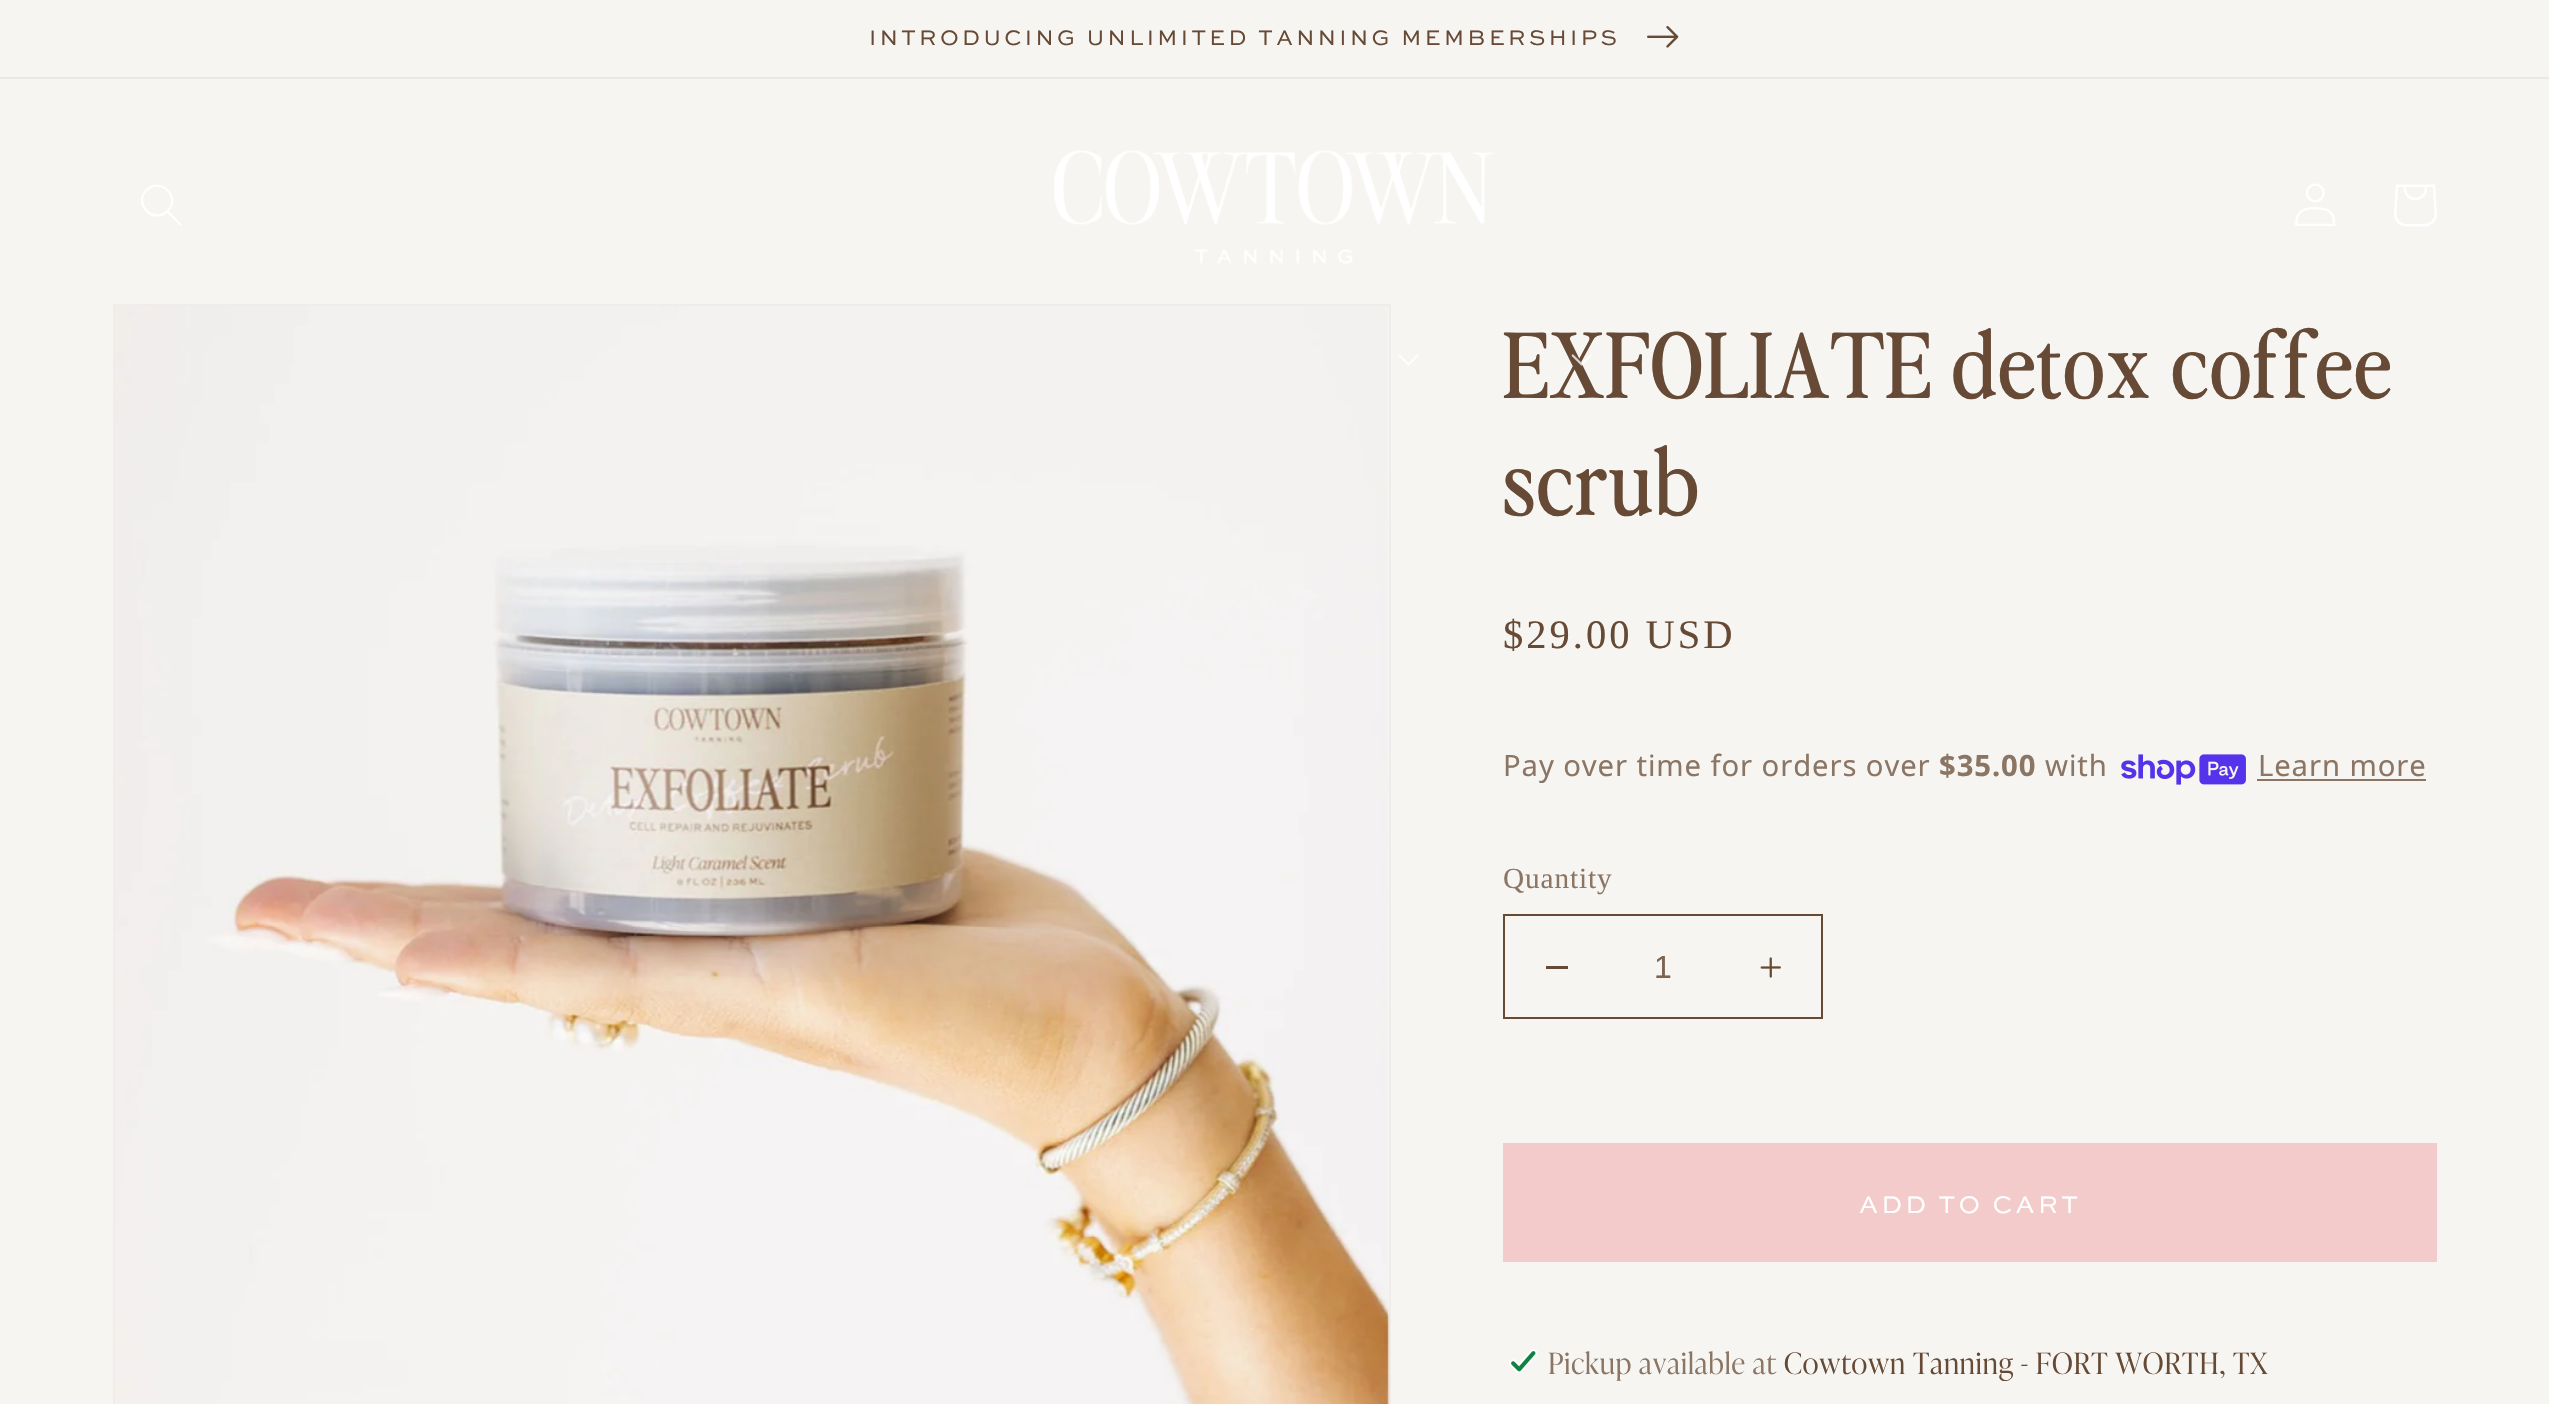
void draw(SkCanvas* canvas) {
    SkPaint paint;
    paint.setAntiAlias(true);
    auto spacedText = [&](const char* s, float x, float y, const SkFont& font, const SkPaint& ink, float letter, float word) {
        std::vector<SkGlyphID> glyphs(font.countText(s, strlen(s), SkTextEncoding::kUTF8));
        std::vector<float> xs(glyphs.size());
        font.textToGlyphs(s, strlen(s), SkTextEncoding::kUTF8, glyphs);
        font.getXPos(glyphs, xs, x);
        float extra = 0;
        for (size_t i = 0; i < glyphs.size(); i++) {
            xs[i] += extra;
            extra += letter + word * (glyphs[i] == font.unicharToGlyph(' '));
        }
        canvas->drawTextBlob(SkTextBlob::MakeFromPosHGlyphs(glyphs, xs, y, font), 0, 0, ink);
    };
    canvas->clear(0xFFF6F5F2);
    paint.setColor(0xFFEBE7E3);
    canvas->drawRect(SkRect::MakeXYWH(0, 77, 2549, 2), paint);
    SkFont font1(fontMgr->matchFamilyStyle("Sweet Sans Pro", SkFontStyle::Normal()), 22.05f);
    font1.setSubpixel(true);
    paint.setColor(0xFF674A35);
    spacedText("INTRODUCING UNLIMITED TANNING MEMBERSHIPS", 869, 45, font1, paint, 3.4f, 0);
    canvas->drawImageRect(SkImages::DeferredFromEncodedData(SkData::MakeFromFileName("img1.png")), SkRect::MakeXYWH(1647, 26, 32, 22), SkSamplingOptions());
    paint.setColor(0x14FFFFFF);
    canvas->drawRect(SkRect::MakeXYWH(1507, 486, 191, 2), paint);
    paint.setColor(0xFFFFFFFF);
    canvas->drawPath(SkPathBuilder(SkPathFillType::kEvenOdd).moveTo(167, 210).cubicTo(154, 223, 135, 203, 147, 191).cubicTo(160, 178, 180, 197, 167, 210).close().moveTo(167, 213).cubicTo(152, 226, 131, 203, 146, 189).cubicTo(160, 175, 183, 196, 169, 211).lineTo(182, 225).lineTo(182, 226).cubicTo(180, 227, 169, 214, 167, 213).close().detach(), paint);
    canvas->drawImageRect(SkImages::DeferredFromEncodedData(SkData::MakeFromFileName("img2.png")), SkRect::MakeXYWH(1054, 150, 440, 114), SkSamplingOptions());
    canvas->drawImageRect(SkImages::DeferredFromEncodedData(SkData::MakeFromFileName("img3.png")), SkRect::MakeXYWH(2295, 183, 41, 43), SkSamplingOptions());
    canvas->drawImageRect(SkImages::DeferredFromEncodedData(SkData::MakeFromFileName("img4.png")), SkRect::MakeXYWH(2394, 184, 43, 43), SkSamplingOptions());
    canvas->drawImageRect(SkImages::DeferredFromEncodedData(SkData::MakeFromFileName("img5.png")), SkRect::MakeXYWH(1398, 354, 21, 12), SkSamplingOptions());
    SkFont font2(fontMgr->matchFamilyStyle("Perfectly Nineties", SkFontStyle::Normal()), 90);
    font2.setSubpixel(true);
    paint.setColor(0xFF674A35);
    spacedText("EXFOLIATE detox coffee", 1503, 398, font2, paint, 1.35f, 0);
    canvas->drawImageRect(SkImages::DeferredFromEncodedData(SkData::MakeFromFileName("img6.png")), SkRect::MakeXYWH(1571, 354, 21, 12), SkSamplingOptions());
    paint.setStyle(SkPaint::kStroke_Style);
    paint.setStrokeWidth(2);
    paint.setColor(0xFFEFECE9);
    canvas->drawRect(SkRect::MakeXYWH(114, 305, 1276, 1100), paint);
    canvas->drawImageRect(SkImages::DeferredFromEncodedData(SkData::MakeFromFileName("img7.png")), SkRect::MakeXYWH(115, 306, 1275, 1098), SkSamplingOptions());
    paint.setStyle(SkPaint::kFill_Style);
    paint.setColor(0xFF674A35);
    spacedText("scrub", 1503, 515, font2, paint, 1.35f, 0);
    SkFont font3(fontMgr->matchFamilyStyle("Liberation Serif", SkFontStyle::Normal()), 40.5f);
    font3.setSubpixel(true);
    spacedText("$29.00 USD", 1503, 648, font3, paint, 3, 0);
    SkFont font4(fontMgr->matchFamilyStyle("Noto Sans", SkFontStyle::Normal()), 29.25f);
    font4.setSubpixel(true);
    paint.setColor(0xFF8B7564);
    spacedText("Pay over time for orders over", 1503, 776, font4, paint, 0.9f, 0);
    SkFont font5(fontMgr->matchFamilyStyle("Noto Sans", SkFontStyle::Bold()), 29.25f);
    font5.setSubpixel(true);
    spacedText("$35.00", 1939, 776, font5, paint, 0.9f, 0);
    spacedText("with", 2045, 776, font4, paint, 0.9f, 0);
    canvas->drawImageRect(SkImages::DeferredFromEncodedData(SkData::MakeFromFileName("img8.png")), SkRect::MakeXYWH(2121, 754, 125, 31), SkSamplingOptions());
    spacedText("Learn more", 2258, 776, font4, paint, 0.9f, 0);
    canvas->drawRect(SkRect::MakeXYWH(2257, 779, 169, 2), paint);
    SkFont font6(fontMgr->matchFamilyStyle("Liberation Serif", SkFontStyle::Normal()), 29.25f);
    font6.setSubpixel(true);
    spacedText("Quantity", 1503, 888, font6, paint, 0.9f, 0);
    paint.setColor(0xFF674A35);
    canvas->drawRect(SkRect::MakeXYWH(1546, 966, 22, 3), paint);
    canvas->drawImageRect(SkImages::DeferredFromEncodedData(SkData::MakeFromFileName("img9.png")), SkRect::MakeXYWH(1760, 957, 21, 21), SkSamplingOptions());
    paint.setStyle(SkPaint::kStroke_Style);
    canvas->drawRect(SkRect::MakeXYWH(1504, 915, 318, 103), paint);
    SkFont font7(fontMgr->matchFamilyStyle("Liberation Sans", SkFontStyle::Normal()), 32);
    font7.setSubpixel(true);
    paint.setStyle(SkPaint::kFill_Style);
    paint.setColor(0xFF7C6451);
    canvas->drawString("1", 1654, 978, font7, paint);
    paint.setColor(0xFFF3CBCA);
    canvas->drawRect(SkRect::MakeXYWH(1503, 1143, 934, 119), paint);
    SkFont font8(fontMgr->matchFamilyStyle("Sweet Sans Pro", SkFontStyle::Normal()), 25.25f);
    font8.setSubpixel(true);
    paint.setColor(0xFFFFFFFF);
    spacedText("ADD TO CART", 1859, 1213, font8, paint, 3.4f, 0);
    canvas->drawImageRect(SkImages::DeferredFromEncodedData(SkData::MakeFromFileName("img10.png")), SkRect::MakeXYWH(1509, 1349, 29, 25), SkSamplingOptions());
    SkFont font9(fontMgr->matchFamilyStyle("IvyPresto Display", SkFontStyle(300, SkFontStyle::kNormal_Width, SkFontStyle::kUpright_Slant)), 29.25f);
    font9.setSubpixel(true);
    paint.setColor(0xFF8B7564);
    spacedText("Pickup available at", 1548, 1374, font9, paint, 0.9f, 0);
    paint.setColor(0xFF674A35);
    spacedText("Cowtown Tanning - FORT WORTH, TX", 1784, 1374, font9, paint, 0.9f, 0);
}
